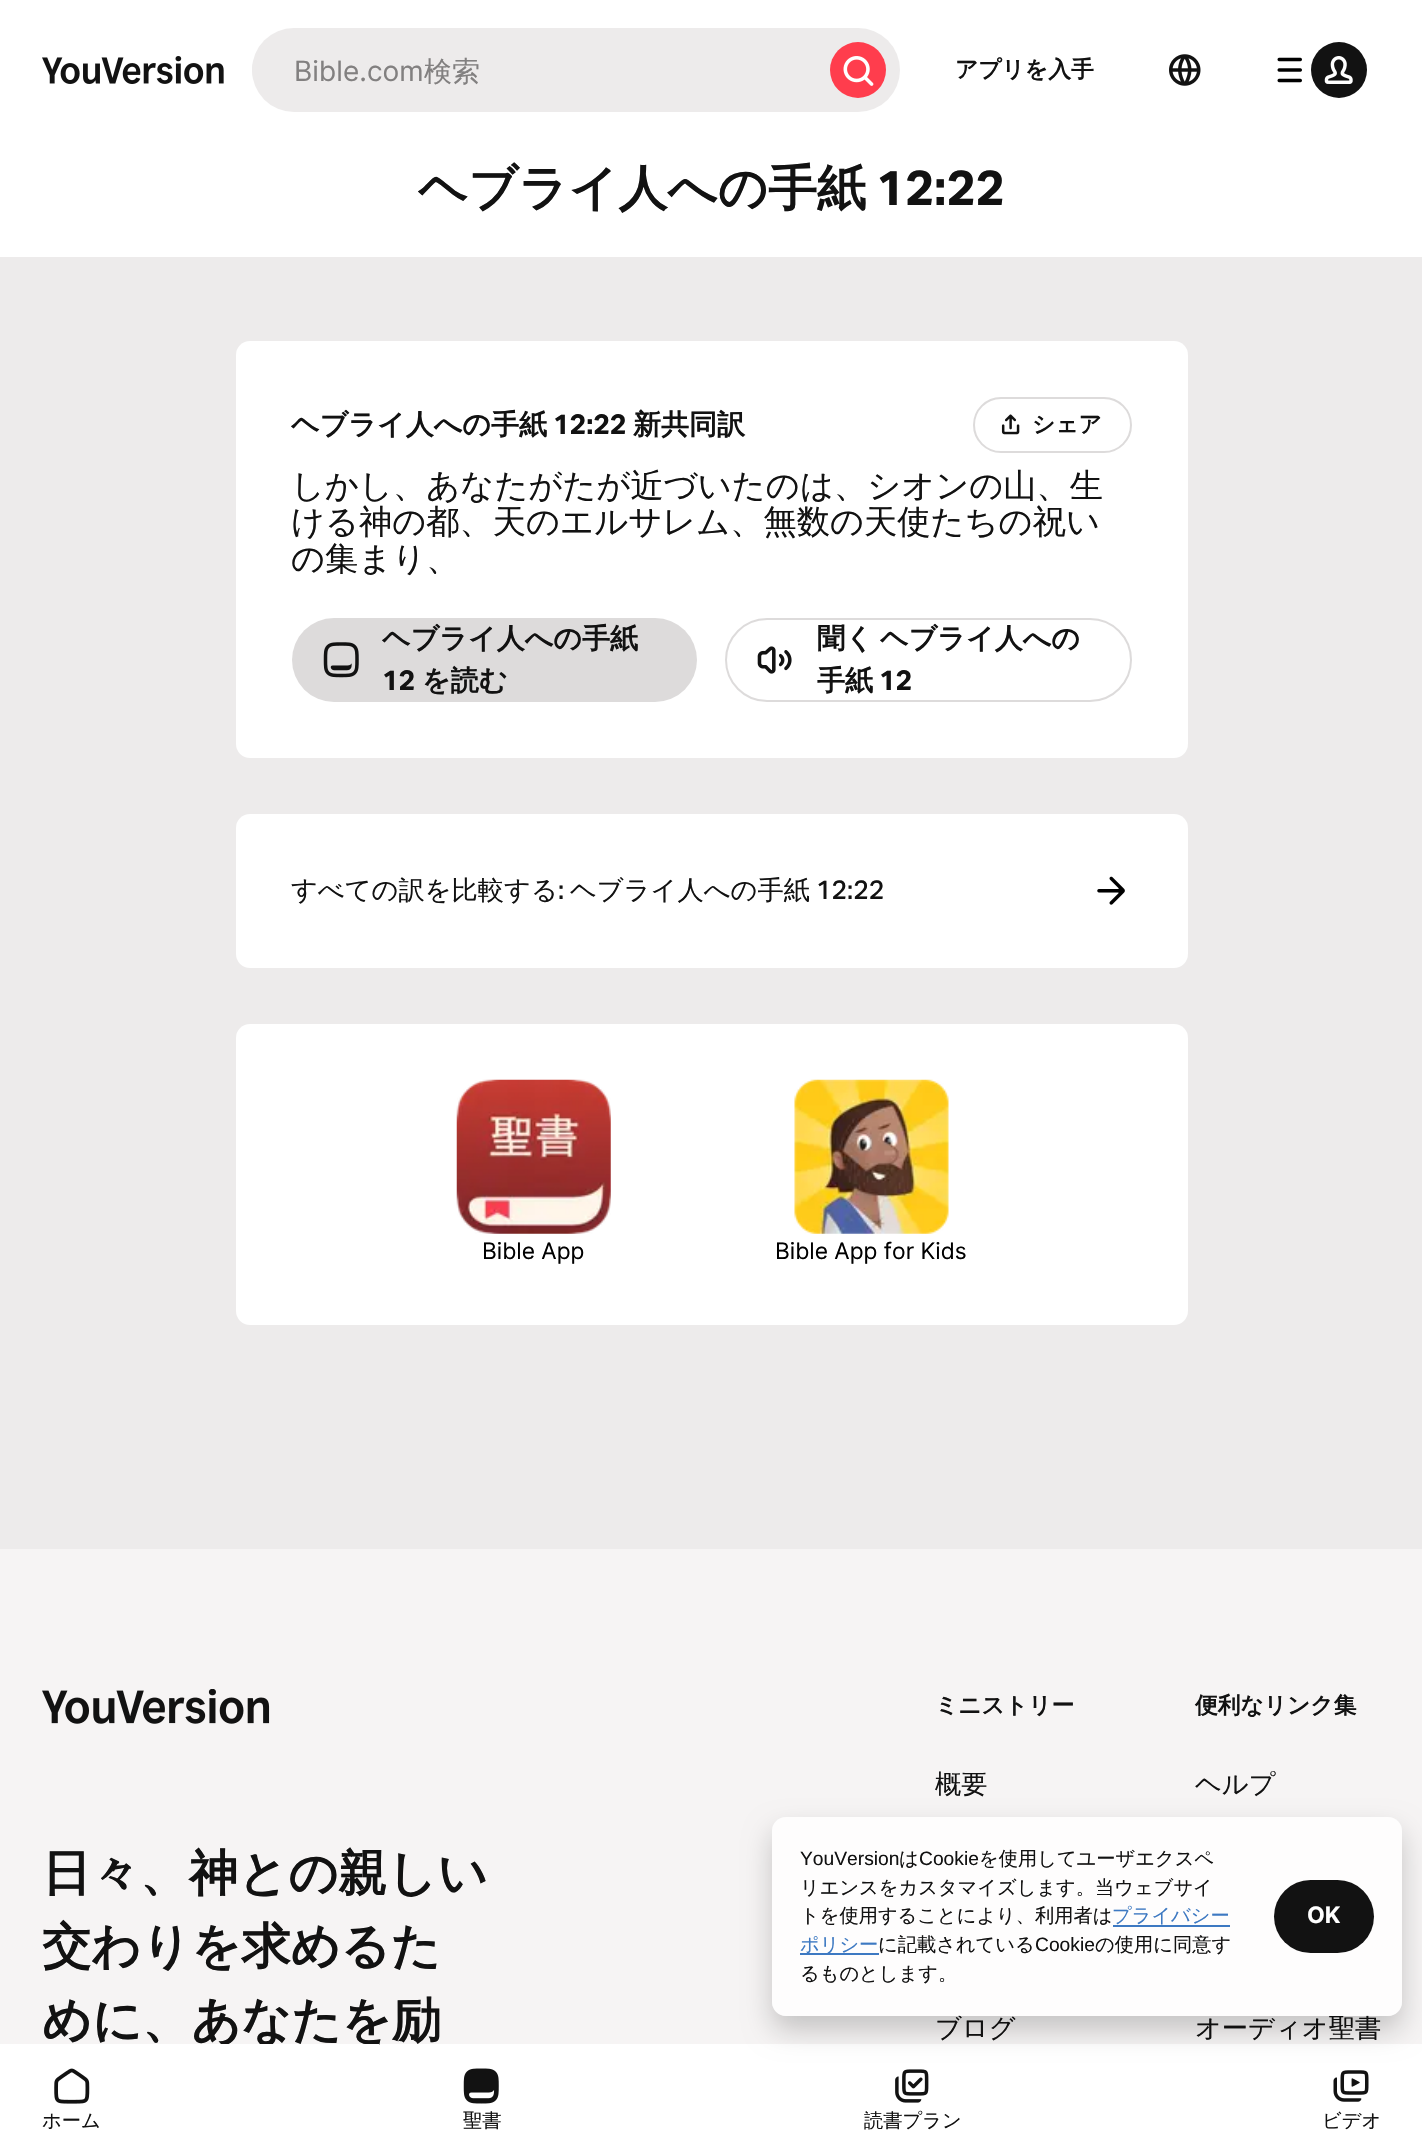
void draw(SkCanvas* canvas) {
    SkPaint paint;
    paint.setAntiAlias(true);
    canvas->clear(0xFFFFFFFF);
    canvas->drawImageRect(SkImages::DeferredFromEncodedData(SkData::MakeFromFileName("img1.png")), SkRect::MakeXYWH(42, 56, 182, 28), SkSamplingOptions());
    paint.setColor(0xFFEDEBEB);
    canvas->drawRoundRect(SkRect::MakeXYWH(252, 28, 648, 84), 42, 42, paint);
    canvas->drawRoundRect(SkRect::MakeXYWH(252, 42, 564, 56), 28, 28, paint);
    SkFont font1(fontMgr->matchFamilyStyle("Inter", SkFontStyle::Normal()), 28);
    font1.setSubpixel(true);
    paint.setColor(0xFF828080);
    canvas->drawString("Bible.com", 294, 81, font1, paint);
    SkFont font2(fontMgr->matchFamilyStyle("WenQuanYi Zen Hei", SkFontStyle(500, SkFontStyle::kNormal_Width, SkFontStyle::kUpright_Slant)), 28);
    font2.setSubpixel(true);
    canvas->drawString("検索", 424, 81, font2, paint);
    paint.setColor(0xFFFF3D4D);
    canvas->drawCircle(858, 70, 28, paint);
    canvas->drawImageRect(SkImages::DeferredFromEncodedData(SkData::MakeFromFileName("img2.png")), SkRect::MakeXYWH(843, 56, 31, 30), SkSamplingOptions());
    SkFont font3(fontMgr->matchFamilyStyle("WenQuanYi Zen Hei", SkFontStyle::Bold()), 22.75f);
    font3.setSubpixel(true);
    paint.setColor(0xFF121212);
    canvas->drawString("アプリを入手", 955, 77, font3, paint);
    canvas->drawImageRect(SkImages::DeferredFromEncodedData(SkData::MakeFromFileName("img3.png")), SkRect::MakeXYWH(1169, 54, 32, 32), SkSamplingOptions());
    canvas->drawImageRect(SkImages::DeferredFromEncodedData(SkData::MakeFromFileName("img4.png")), SkRect::MakeXYWH(1277, 57, 25, 26), SkSamplingOptions());
    canvas->drawCircle(1339, 70, 28, paint);
    canvas->drawImageRect(SkImages::DeferredFromEncodedData(SkData::MakeFromFileName("img5.png")), SkRect::MakeXYWH(1324, 56, 29, 28), SkSamplingOptions());
    SkFont font4(fontMgr->matchFamilyStyle("WenQuanYi Zen Hei", SkFontStyle::Bold()), 49);
    font4.setSubpixel(true);
    canvas->drawString("ヘブライ人への手紙", 418, 205, font4, paint);
    SkFont font5(fontMgr->matchFamilyStyle("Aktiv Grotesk", SkFontStyle::Bold()), 49);
    font5.setSubpixel(true);
    canvas->drawString("12:22", 876, 205, font5, paint);
    paint.setColor(0xFFEDEBEB);
    canvas->drawRect(SkRect::MakeXYWH(0, 257, 1422, 1292), paint);
    paint.setColor(0xFFFFFFFF);
    canvas->drawRoundRect(SkRect::MakeXYWH(236, 341, 952, 417), 14, 14, paint);
    SkFont font6(fontMgr->matchFamilyStyle("WenQuanYi Zen Hei", SkFontStyle::Bold()), 28);
    font6.setSubpixel(true);
    paint.setColor(0xFF121212);
    canvas->drawString("ヘブライ人への手紙", 291, 434, font6, paint);
    SkFont font7(fontMgr->matchFamilyStyle("Aktiv Grotesk", SkFontStyle::Bold()), 28);
    font7.setSubpixel(true);
    canvas->drawString("12:22", 553, 434, font7, paint);
    canvas->drawString("新共同訳", 633, 434, font6, paint);
    paint.setStyle(SkPaint::kStroke_Style);
    paint.setStrokeWidth(2);
    paint.setColor(0xFFDDDBDB);
    canvas->drawRoundRect(SkRect::MakeXYWH(974, 398, 157, 54), 27, 27, paint);
    canvas->drawImageRect(SkImages::DeferredFromEncodedData(SkData::MakeFromFileName("img6.png")), SkRect::MakeXYWH(1001, 414, 19, 21), SkSamplingOptions());
    paint.setStyle(SkPaint::kFill_Style);
    paint.setColor(0xFF121212);
    canvas->drawString("シェア", 1032, 432, font3, paint);
    SkFont font8(fontMgr->matchFamilyStyle("WenQuanYi Zen Hei", SkFontStyle(500, SkFontStyle::kNormal_Width, SkFontStyle::kUpright_Slant)), 33.25f);
    font8.setSubpixel(true);
    canvas->drawString("しかし、あなたがたが近づいたのは、シオンの山、生", 291, 497, font8, paint);
    canvas->drawString("ける神の都、天のエルサレム、無数の天使たちの祝い", 291, 533, font8, paint);
    canvas->drawString("の集まり、", 291, 570, font8, paint);
    paint.setColor(0xFFDDDBDB);
    canvas->drawRoundRect(SkRect::MakeXYWH(292, 618, 405, 84), 42, 42, paint);
    canvas->drawImageRect(SkImages::DeferredFromEncodedData(SkData::MakeFromFileName("img7.png")), SkRect::MakeXYWH(323, 642, 36, 36), SkSamplingOptions());
    paint.setColor(0xFF121212);
    canvas->drawString("ヘブライ人への手紙", 382, 648, font6, paint);
    canvas->drawString("12", 382, 690, font7, paint);
    canvas->drawString("を読む", 422, 690, font6, paint);
    paint.setStyle(SkPaint::kStroke_Style);
    paint.setColor(0xFFDDDBDB);
    canvas->drawRoundRect(SkRect::MakeXYWH(726, 619, 405, 82), 41, 41, paint);
    canvas->drawImageRect(SkImages::DeferredFromEncodedData(SkData::MakeFromFileName("img8.png")), SkRect::MakeXYWH(757, 646, 35, 28), SkSamplingOptions());
    paint.setStyle(SkPaint::kFill_Style);
    paint.setColor(0xFF121212);
    canvas->drawString("聞く", 817, 648, font6, paint);
    canvas->drawString("ヘブライ人への", 880, 648, font6, paint);
    canvas->drawString("手紙", 817, 690, font6, paint);
    canvas->drawString("12", 879, 690, font7, paint);
    paint.setColor(0xFFFFFFFF);
    canvas->drawRoundRect(SkRect::MakeXYWH(236, 814, 952, 154), 14, 14, paint);
    SkFont font9(fontMgr->matchFamilyStyle("WenQuanYi Zen Hei", SkFontStyle(500, SkFontStyle::kNormal_Width, SkFontStyle::kUpright_Slant)), 26.25f);
    font9.setSubpixel(true);
    paint.setColor(0xFF121212);
    canvas->drawString("すべての訳を比較する", 291, 899, font9, paint);
    SkFont font10(fontMgr->matchFamilyStyle("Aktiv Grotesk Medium", SkFontStyle(500, SkFontStyle::kNormal_Width, SkFontStyle::kUpright_Slant)), 26.25f);
    font10.setSubpixel(true);
    canvas->drawString(":", 558, 899, font10, paint);
    canvas->drawString("ヘブライ人への手紙", 570, 899, font9, paint);
    canvas->drawString("12:22", 816, 899, font10, paint);
    canvas->drawImageRect(SkImages::DeferredFromEncodedData(SkData::MakeFromFileName("img9.png")), SkRect::MakeXYWH(1097, 876, 28, 29), SkSamplingOptions());
    paint.setColor(0xFFFFFFFF);
    canvas->drawRoundRect(SkRect::MakeXYWH(236, 1024, 952, 301), 14, 14, paint);
    canvas->drawImageRect(SkImages::DeferredFromEncodedData(SkData::MakeFromFileName("img10.png")), SkRect::MakeXYWH(456, 1079, 155, 155), SkSamplingOptions());
    SkFont font11(fontMgr->matchFamilyStyle("Inter", SkFontStyle::Normal()), 22.75f);
    font11.setSubpixel(true);
    paint.setColor(0xFF000000);
    canvas->drawString("Bible App", 482, 1259, font11, paint);
    canvas->drawImageRect(SkImages::DeferredFromEncodedData(SkData::MakeFromFileName("img11.png")), SkRect::MakeXYWH(794, 1079, 155, 155), SkSamplingOptions());
    canvas->drawString("Bible App for Kids", 775, 1259, font11, paint);
    paint.setColor(0xFFF6F4F4);
    canvas->drawRect(SkRect::MakeXYWH(0, 1549, 1422, 495), paint);
    canvas->drawImageRect(SkImages::DeferredFromEncodedData(SkData::MakeFromFileName("img12.png")), SkRect::MakeXYWH(42, 1689, 228, 35), SkSamplingOptions());
    paint.setColor(0xFF121212);
    canvas->drawString("日々、神との親しい", 42, 1890, font4, paint);
    canvas->drawString("交わりを求めるた", 42, 1963, font4, paint);
    canvas->drawString("めに、あなたを励", 42, 2037, font4, paint);
    canvas->drawString("ミニストリー", 935, 1713, font3, paint);
    canvas->drawString("概要", 935, 1793, font9, paint);
    canvas->drawString("ブログ", 935, 2037, font9, paint);
    canvas->drawString("便利なリンク集", 1195, 1713, font3, paint);
    canvas->drawString("ヘルプ", 1195, 1793, font9, paint);
    canvas->drawString("オーディオ聖書", 1195, 2037, font9, paint);
    canvas->drawImageRect(SkImages::DeferredFromEncodedData(SkData::MakeFromFileName("img15.png")), SkRect::MakeXYWH(895, 2069, 34, 34), SkSamplingOptions());
    canvas->drawImageRect(SkImages::DeferredFromEncodedData(SkData::MakeFromFileName("img16.png")), SkRect::MakeXYWH(1333, 2070, 36, 32), SkSamplingOptions());
    canvas->save();
    canvas->clipPath(SkPathBuilder(SkPathFillType::kEvenOdd).moveTo(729, 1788).lineTo(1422, 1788).lineTo(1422, 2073).lineTo(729, 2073).close().moveTo(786, 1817).lineTo(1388, 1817).cubicTo(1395.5f, 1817, 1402, 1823.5f, 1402, 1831).lineTo(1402, 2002).cubicTo(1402, 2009.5f, 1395.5f, 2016, 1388, 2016).lineTo(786, 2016).cubicTo(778.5f, 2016, 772, 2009.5f, 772, 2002).lineTo(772, 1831).cubicTo(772, 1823.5f, 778.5f, 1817, 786, 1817).close().detach(), true);
    paint.setColor(0x33000000);
    paint.setMaskFilter(SkMaskFilter::MakeBlur(kNormal_SkBlurStyle, 14));
    canvas->drawRoundRect(SkRect::MakeXYWH(772, 1831, 630, 199), 14, 14, paint);
    paint.setMaskFilter(nullptr);
    canvas->restore();
    paint.setColor(0xCCFFFFFF);
    canvas->drawRoundRect(SkRect::MakeXYWH(772, 1817, 630, 199), 14, 14, paint);
    SkFont font12(fontMgr->matchFamilyStyle("Liberation Sans", SkFontStyle::Normal()), 19.25f);
    font12.setSubpixel(true);
    paint.setColor(0xFF121212);
    canvas->drawString("YouVersion", 800, 1865, font12, paint);
    SkFont font13(fontMgr->matchFamilyStyle("WenQuanYi Zen Hei", SkFontStyle(500, SkFontStyle::kNormal_Width, SkFontStyle::kUpright_Slant)), 19.25f);
    font13.setSubpixel(true);
    canvas->drawString("は", 899, 1865, font13, paint);
    canvas->drawString("Cookie", 919, 1865, font12, paint);
    canvas->drawString("を使用してユーザエクスペ", 979, 1865, font13, paint);
    canvas->drawString("リエンスをカスタマイズします。当ウェブサイ", 800, 1894, font13, paint);
    canvas->drawString("トを使用することにより、利用者は", 800, 1922, font13, paint);
    paint.setColor(0xFF3D79C2);
    canvas->drawString("プライバシー", 1112, 1922, font13, paint);
    canvas->drawRect(SkRect::MakeXYWH(1113, 1925, 117, 2), paint);
    canvas->drawRect(SkRect::MakeXYWH(800, 1953, 79, 2), paint);
    canvas->drawString("ポリシー", 800, 1951, font13, paint);
    paint.setColor(0xFF121212);
    canvas->drawString("に記載されている", 878, 1951, font13, paint);
    canvas->drawString("Cookie", 1035, 1951, font12, paint);
    canvas->drawString("の使用に同意す", 1095, 1951, font13, paint);
    canvas->drawString("るものとします。", 800, 1980, font13, paint);
    canvas->drawRoundRect(SkRect::MakeXYWH(1274, 1880, 100, 73), 36.5f, 36.5f, paint);
    SkFont font14(fontMgr->matchFamilyStyle("Inter", SkFontStyle::Bold()), 22.75f);
    font14.setSubpixel(true);
    paint.setColor(0xFFFFFFFF);
    canvas->drawString("OK", 1307, 1923, font14, paint);
    canvas->drawRect(SkRect::MakeXYWH(220, 2044, 159, 2), paint);
    canvas->drawImageRect(SkImages::DeferredFromEncodedData(SkData::MakeFromFileName("img13.png")), SkRect::MakeXYWH(54, 2068, 36, 36), SkSamplingOptions());
    paint.setColor(0xFF121212);
    canvas->drawString("ホーム", 42, 2127, font13, paint);
    canvas->drawImageRect(SkImages::DeferredFromEncodedData(SkData::MakeFromFileName("img14.png")), SkRect::MakeXYWH(463, 2068, 36, 36), SkSamplingOptions());
    canvas->drawString("聖書", 463, 2127, font13, paint);
    canvas->drawString("読書プラン", 864, 2127, font13, paint);
    canvas->drawString("ビデオ", 1322, 2127, font13, paint);
}
